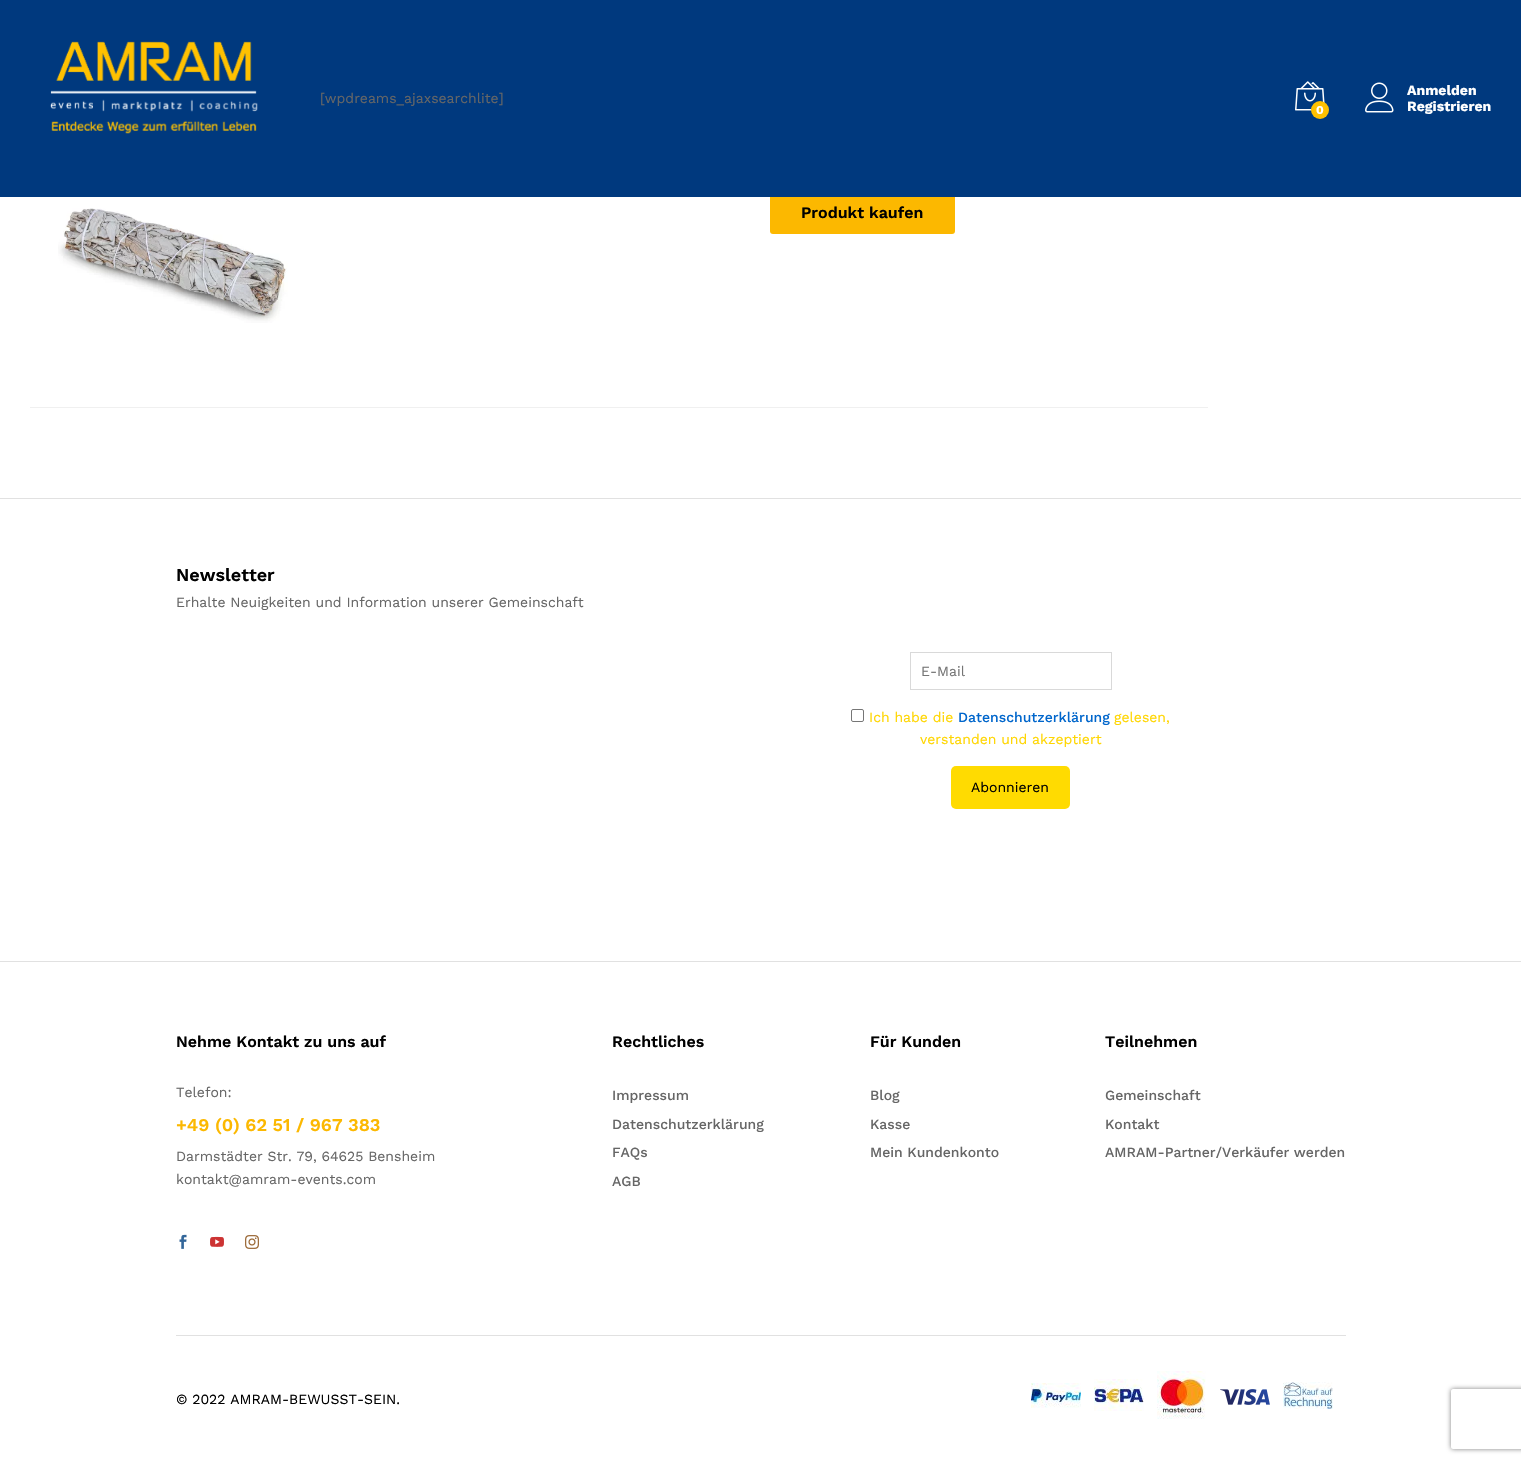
void draw(SkCanvas* canvas) {
    SkPaint paint;
    paint.setAntiAlias(true);
    canvas->clear(0xFFFFFFFF);
    paint.setColor(0xFFFCB800);
    canvas->drawRoundRect(SkRect::MakeXYWH(770, 192, 185, 42), 3, 3, paint);
    paint.setColor(0xFF00397E);
    canvas->drawRect(SkRect::MakeXYWH(0, 0, 1521, 197), paint);
    canvas->drawImageRect(SkImages::DeferredFromEncodedData(SkData::MakeFromFileName("img1.png")), SkRect::MakeXYWH(50, 41, 208, 93), SkSamplingOptions());
    SkFont font1(fontMgr->matchFamilyStyle("Work Sans", SkFontStyle::Normal()), 14);
    font1.setSubpixel(true);
    paint.setColor(0xFF666666);
    canvas->drawString("[wpdreams_ajaxsearchlite]", 320, 103, font1, paint);
    canvas->drawImageRect(SkImages::DeferredFromEncodedData(SkData::MakeFromFileName("img2.png")), SkRect::MakeXYWH(1295, 81, 30, 30), SkSamplingOptions());
    paint.setColor(0xFFFFC100);
    canvas->drawCircle(1320, 110, 9, paint);
    SkFont font2(fontMgr->matchFamilyStyle("Work Sans", SkFontStyle::Bold()), 12);
    font2.setSubpixel(true);
    paint.setColor(0xFFFFFFFF);
    canvas->drawString("0", 1316, 114, font2, paint);
    canvas->drawImageRect(SkImages::DeferredFromEncodedData(SkData::MakeFromFileName("img3.png")), SkRect::MakeXYWH(1365, 82, 29, 31), SkSamplingOptions());
    SkFont font3(fontMgr->matchFamilyStyle("Work Sans", SkFontStyle::Bold()), 14);
    font3.setSubpixel(true);
    canvas->drawString("Anmelden", 1407, 95, font3, paint);
    canvas->drawString("Registrieren", 1407, 111, font3, paint);
    paint.setColor(0xFFF0F0F0);
    canvas->drawRect(SkRect::MakeXYWH(30, 407, 1178, 1), paint);
    canvas->drawImageRect(SkImages::DeferredFromEncodedData(SkData::MakeFromFileName("img4.png")), SkRect::MakeXYWH(58, 208, 230, 115), SkSamplingOptions());
    SkFont font4(fontMgr->matchFamilyStyle("Work Sans", SkFontStyle(600, SkFontStyle::kNormal_Width, SkFontStyle::kUpright_Slant)), 16);
    font4.setSubpixel(true);
    paint.setColor(0xFF000000);
    canvas->drawString("Produkt kaufen", 801, 218, font4, paint);
    paint.setColor(0xFFE1E1E1);
    canvas->drawRect(SkRect::MakeXYWH(0, 498, 1521, 1), paint);
    canvas->drawRect(SkRect::MakeXYWH(0, 961, 1521, 1), paint);
    SkFont font5(fontMgr->matchFamilyStyle("Work Sans", SkFontStyle(600, SkFontStyle::kNormal_Width, SkFontStyle::kUpright_Slant)), 18);
    font5.setSubpixel(true);
    paint.setColor(0xFF000000);
    canvas->drawString("Newsletter", 176, 581, font5, paint);
    paint.setColor(0xFF666666);
    canvas->drawString("Erhalte Neuigkeiten und Information unserer Gemeinschaft", 176, 607, font1, paint);
    paint.setStyle(SkPaint::kStroke_Style);
    paint.setStrokeWidth(1);
    paint.setColor(0xFFD9D9D9);
    canvas->drawRect(SkRect::MakeXYWH(910.5f, 652.5f, 201, 37), paint);
    paint.setStyle(SkPaint::kFill_Style);
    paint.setColor(0xFF757575);
    canvas->drawString("E-Mail", 921, 676, font1, paint);
    paint.setStyle(SkPaint::kStroke_Style);
    paint.setColor(0xFF767676);
    canvas->drawRoundRect(SkRect::MakeXYWH(851.5f, 709.5f, 12, 12), 1.5f, 1.5f, paint);
    paint.setStyle(SkPaint::kFill_Style);
    paint.setColor(0xFFFFD600);
    canvas->drawString("Ich habe die", 869, 722, font1, paint);
    SkFont font6(fontMgr->matchFamilyStyle("Work Sans", SkFontStyle(500, SkFontStyle::kNormal_Width, SkFontStyle::kUpright_Slant)), 14);
    font6.setSubpixel(true);
    paint.setColor(0xFF0066CC);
    canvas->drawString("Datenschutzerklärung", 958, 722, font6, paint);
    paint.setColor(0xFFFFD600);
    canvas->drawString("gelesen,", 1114, 722, font1, paint);
    canvas->drawString("verstanden und akzeptiert", 920, 744, font1, paint);
    paint.setColor(0xFFFFDB01);
    canvas->drawRoundRect(SkRect::MakeXYWH(951, 766, 119, 43), 5, 5, paint);
    paint.setColor(0xFF000000);
    canvas->drawString("Abonnieren", 971, 792, font1, paint);
    canvas->drawString("Nehme Kontakt zu uns auf", 176, 1047, font4, paint);
    paint.setColor(0xFF666666);
    canvas->drawString("Telefon:", 176, 1097, font1, paint);
    paint.setColor(0xFFFCB800);
    canvas->drawString("+49 (0) 62 51 / 967 383", 176, 1131, font5, paint);
    paint.setColor(0xFF666666);
    canvas->drawString("Darmstädter Str. 79, 64625 Bensheim", 176, 1161, font1, paint);
    canvas->drawString("kontakt@amram-events.com", 176, 1184, font1, paint);
    canvas->drawImageRect(SkImages::DeferredFromEncodedData(SkData::MakeFromFileName("img5.png")), SkRect::MakeXYWH(179, 1234, 8, 15), SkSamplingOptions());
    canvas->drawImageRect(SkImages::DeferredFromEncodedData(SkData::MakeFromFileName("img6.png")), SkRect::MakeXYWH(210, 1236, 14, 11), SkSamplingOptions());
    canvas->drawImageRect(SkImages::DeferredFromEncodedData(SkData::MakeFromFileName("img7.png")), SkRect::MakeXYWH(245, 1235, 14, 14), SkSamplingOptions());
    paint.setColor(0xFF000000);
    canvas->drawString("Rechtliches", 612, 1047, font4, paint);
    paint.setColor(0xFF666666);
    canvas->drawString("Impressum", 612, 1100, font6, paint);
    canvas->drawString("Datenschutzerklärung", 612, 1129, font6, paint);
    canvas->drawString("FAQs", 612, 1157, font6, paint);
    canvas->drawString("AGB", 612, 1186, font6, paint);
    paint.setColor(0xFF000000);
    canvas->drawString("Für Kunden", 870, 1047, font4, paint);
    paint.setColor(0xFF666666);
    canvas->drawString("Blog", 870, 1100, font6, paint);
    canvas->drawString("Kasse", 870, 1129, font6, paint);
    canvas->drawString("Mein Kundenkonto", 870, 1157, font6, paint);
    paint.setColor(0xFF000000);
    canvas->drawString("Teilnehmen", 1105, 1047, font4, paint);
    paint.setColor(0xFF666666);
    canvas->drawString("Gemeinschaft", 1105, 1100, font6, paint);
    canvas->drawString("Kontakt", 1105, 1129, font6, paint);
    canvas->drawString("AMRAM-Partner/Verkäufer werden", 1105, 1157, font6, paint);
    paint.setColor(0xFFE1E1E1);
    canvas->drawRect(SkRect::MakeXYWH(176, 1335, 1170, 1), paint);
    paint.setColor(0xFF000000);
    canvas->drawString("© 2022 AMRAM-BEWUSST-SEIN.", 176, 1404, font1, paint);
    canvas->drawImageRect(SkImages::DeferredFromEncodedData(SkData::MakeFromFileName("img8.png")), SkRect::MakeXYWH(1031, 1383, 50, 25), SkSamplingOptions());
    canvas->drawImageRect(SkImages::DeferredFromEncodedData(SkData::MakeFromFileName("img9.png")), SkRect::MakeXYWH(1094, 1379, 50, 32), SkSamplingOptions());
    canvas->drawImageRect(SkImages::DeferredFromEncodedData(SkData::MakeFromFileName("img10.png")), SkRect::MakeXYWH(1157, 1371, 49, 48), SkSamplingOptions());
    canvas->drawImageRect(SkImages::DeferredFromEncodedData(SkData::MakeFromFileName("img11.png")), SkRect::MakeXYWH(1220, 1389, 50, 16), SkSamplingOptions());
    canvas->drawImageRect(SkImages::DeferredFromEncodedData(SkData::MakeFromFileName("img12.png")), SkRect::MakeXYWH(1283, 1382, 50, 27), SkSamplingOptions());
    canvas->save();
    canvas->clipPath(SkPathBuilder(SkPathFillType::kEvenOdd).moveTo(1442, 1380).lineTo(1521, 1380).lineTo(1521, 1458).lineTo(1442, 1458).close().moveTo(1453, 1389).lineTo(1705, 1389).cubicTo(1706, 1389, 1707, 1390, 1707, 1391).lineTo(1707, 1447).cubicTo(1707, 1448, 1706, 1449, 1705, 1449).lineTo(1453, 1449).cubicTo(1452, 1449, 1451, 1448, 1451, 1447).lineTo(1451, 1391).cubicTo(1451, 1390, 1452, 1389, 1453, 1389).close().detach(), true);
    paint.setColor(0xFF808080);
    paint.setMaskFilter(SkMaskFilter::MakeBlur(kNormal_SkBlurStyle, 2.5f));
    canvas->drawRoundRect(SkRect::MakeXYWH(1451, 1389, 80, 60), 2, 2, paint);
    paint.setMaskFilter(nullptr);
    canvas->restore();
}
